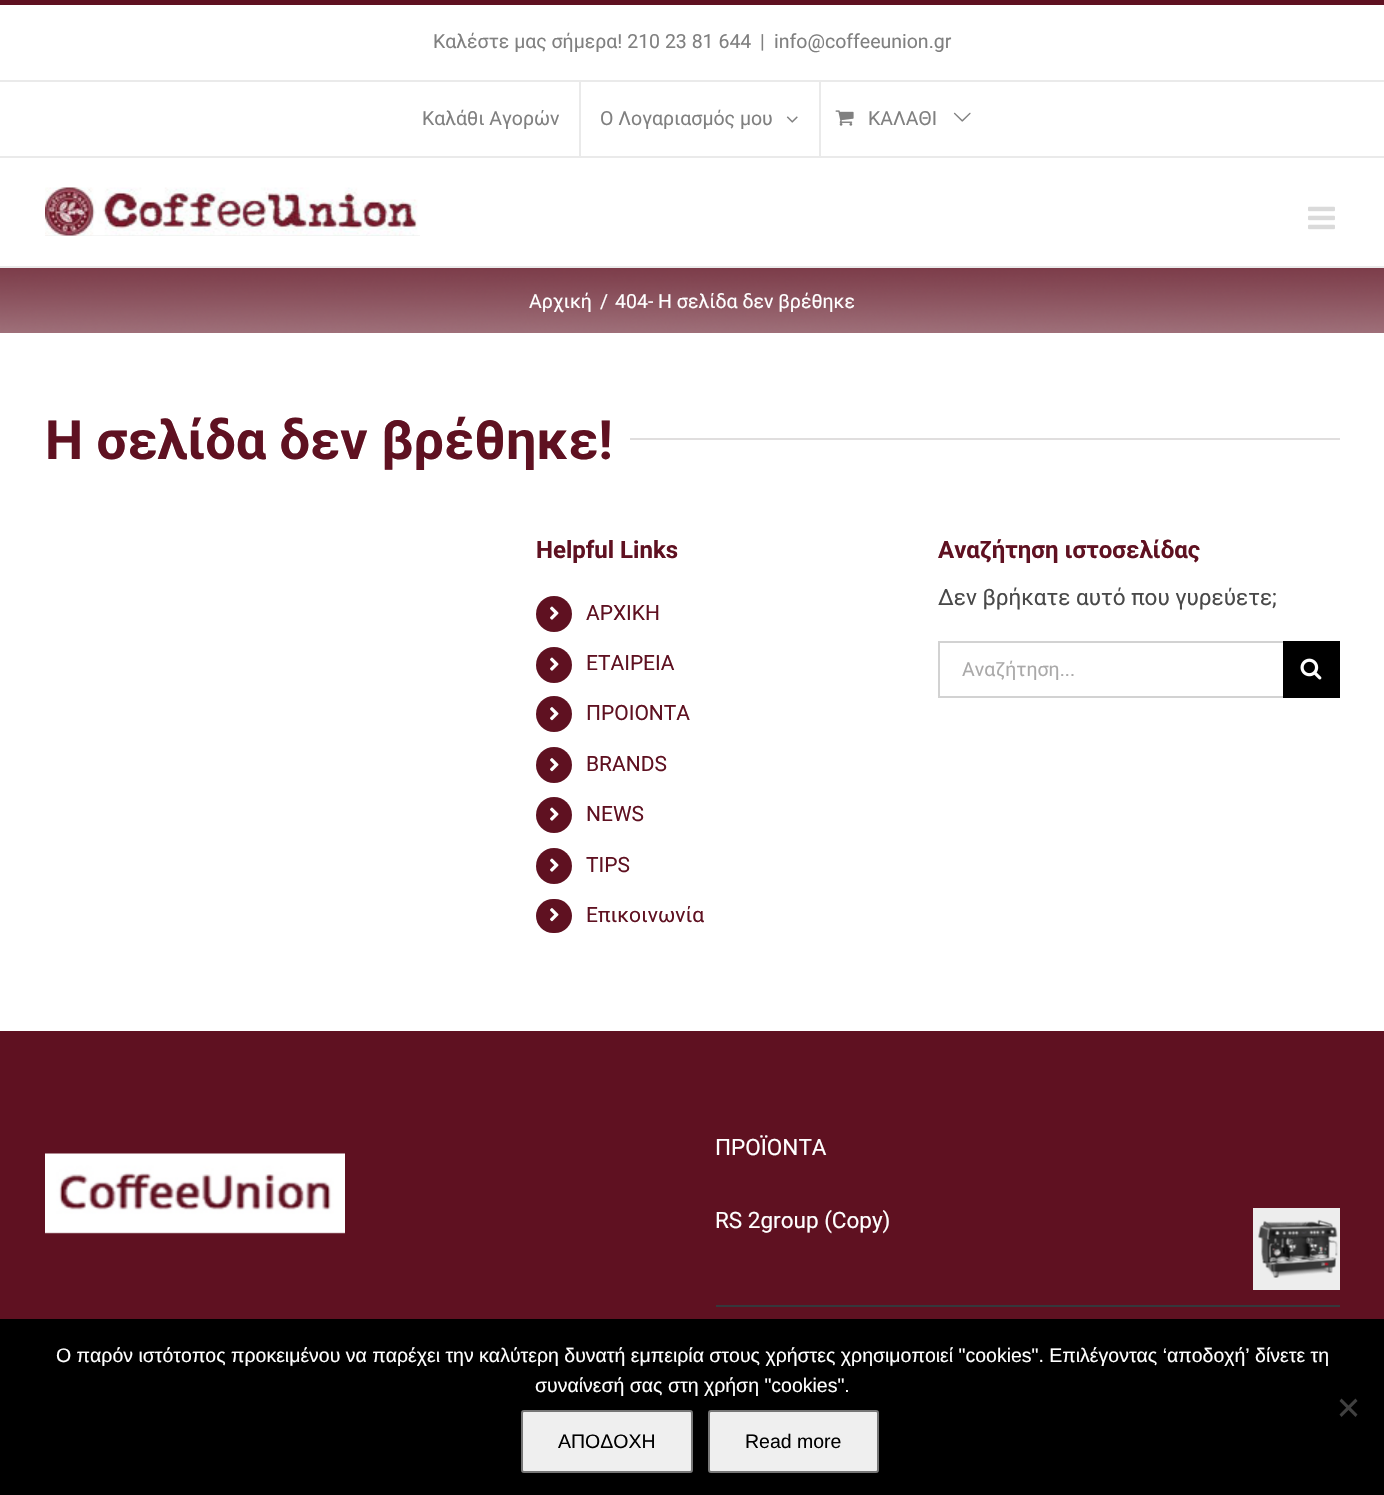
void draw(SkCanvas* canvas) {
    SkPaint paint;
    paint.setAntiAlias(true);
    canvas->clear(0xFFFFFFFF);
    paint.setColor(0xFF5F1121);
    canvas->drawRect(SkRect::MakeXYWH(0, 0, 1384, 5), paint);
    paint.setColor(0xFFEAEAEA);
    canvas->drawRect(SkRect::MakeXYWH(0, 156, 1384, 2), paint);
    canvas->drawRect(SkRect::MakeXYWH(0, 80, 1384, 2), paint);
    SkFont font1(fontMgr->matchFamilyStyle("Roboto", SkFontStyle::Normal()), 19.5f);
    font1.setSubpixel(true);
    paint.setColor(0xFF808080);
    canvas->drawString("Καλέστε μας σήμερα! 210 23 81 644", 433, 48, font1, paint);
    canvas->drawString("|", 760, 48, font1, paint);
    canvas->drawString("info@coffeeunion.gr", 774, 48, font1, paint);
    canvas->drawString("Καλάθι Αγορών", 422, 125, font1, paint);
    paint.setColor(0xFFEAEAEA);
    canvas->drawRect(SkRect::MakeXYWH(579, 81, 2, 75), paint);
    paint.setColor(0xFF808080);
    canvas->drawString("Ο Λογαριασμός μου", 600, 125, font1, paint);
    canvas->drawImageRect(SkImages::DeferredFromEncodedData(SkData::MakeFromFileName("img1.png")), SkRect::MakeXYWH(786, 116, 12, 7), SkSamplingOptions());
    paint.setColor(0xFFEAEAEA);
    canvas->drawRect(SkRect::MakeXYWH(819, 81, 2, 75), paint);
    canvas->drawImageRect(SkImages::DeferredFromEncodedData(SkData::MakeFromFileName("img2.png")), SkRect::MakeXYWH(835, 110, 19, 16), SkSamplingOptions());
    paint.setColor(0xFF808080);
    canvas->drawString("ΚΑΛΑΘΙ", 868, 125, font1, paint);
    canvas->drawImageRect(SkImages::DeferredFromEncodedData(SkData::MakeFromFileName("img3.png")), SkRect::MakeXYWH(953, 112, 18, 10), SkSamplingOptions());
    paint.setColor(0xFFEAEAEA);
    canvas->drawRect(SkRect::MakeXYWH(0, 266, 1384, 2), paint);
    paint.setColor(0xFFEDEDED);
    canvas->drawRect(SkRect::MakeXYWH(45, 235, 375, 1), paint);
    canvas->drawImageRect(SkImages::DeferredFromEncodedData(SkData::MakeFromFileName("img4.png")), SkRect::MakeXYWH(45, 187, 375, 49), SkSamplingOptions());
    canvas->drawImageRect(SkImages::DeferredFromEncodedData(SkData::MakeFromFileName("img5.png")), SkRect::MakeXYWH(1308, 206, 27, 24), SkSamplingOptions());
    canvas->drawImageRect(SkImages::DeferredFromEncodedData(SkData::MakeFromFileName("img6.png")), SkRect::MakeXYWH(0, 268, 1384, 65), SkSamplingOptions());
    paint.setColor(0xFFFFFFFF);
    canvas->drawString("Αρχική", 529, 308, font1, paint);
    canvas->drawString("/", 600, 308, font1, paint);
    canvas->drawString("404- Η σελίδα δεν βρέθηκε", 615, 308, font1, paint);
    SkFont font2(fontMgr->matchFamilyStyle("Roboto", SkFontStyle::Bold()), 54);
    font2.setSubpixel(true);
    paint.setColor(0xFF5F1121);
    canvas->drawString("Η σελίδα δεν βρέθηκε!", 45, 459, font2, paint);
    paint.setColor(0xFFE0DEDE);
    canvas->drawRect(SkRect::MakeXYWH(630, 438, 710, 2), paint);
    SkFont font3(fontMgr->matchFamilyStyle("Roboto", SkFontStyle::Bold()), 24);
    font3.setSubpixel(true);
    paint.setColor(0xFF5F1121);
    canvas->drawString("Helpful Links", 536, 558, font3, paint);
    canvas->drawCircle(554, 614, 18, paint);
    canvas->drawImageRect(SkImages::DeferredFromEncodedData(SkData::MakeFromFileName("img7.png")), SkRect::MakeXYWH(550, 606, 9, 14), SkSamplingOptions());
    SkFont font4(fontMgr->matchFamilyStyle("Roboto", SkFontStyle::Normal()), 21);
    font4.setSubpixel(true);
    canvas->drawString("ΑΡΧΙΚΗ", 586, 620, font4, paint);
    canvas->drawCircle(554, 665, 18, paint);
    canvas->drawImageRect(SkImages::DeferredFromEncodedData(SkData::MakeFromFileName("img7.png")), SkRect::MakeXYWH(550, 657, 9, 14), SkSamplingOptions());
    canvas->drawString("ΕΤΑΙΡΕΙΑ", 586, 670, font4, paint);
    canvas->drawCircle(554, 714, 18, paint);
    canvas->drawImageRect(SkImages::DeferredFromEncodedData(SkData::MakeFromFileName("img8.png")), SkRect::MakeXYWH(550, 707, 9, 14), SkSamplingOptions());
    canvas->drawString("ΠΡΟΙΟΝΤΑ", 586, 720, font4, paint);
    canvas->drawCircle(554, 765, 18, paint);
    canvas->drawImageRect(SkImages::DeferredFromEncodedData(SkData::MakeFromFileName("img8.png")), SkRect::MakeXYWH(550, 758, 9, 14), SkSamplingOptions());
    canvas->drawString("BRANDS", 586, 771, font4, paint);
    canvas->drawCircle(554, 815, 18, paint);
    canvas->drawImageRect(SkImages::DeferredFromEncodedData(SkData::MakeFromFileName("img7.png")), SkRect::MakeXYWH(550, 807, 9, 14), SkSamplingOptions());
    canvas->drawString("NEWS", 586, 821, font4, paint);
    canvas->drawCircle(554, 866, 18, paint);
    canvas->drawImageRect(SkImages::DeferredFromEncodedData(SkData::MakeFromFileName("img7.png")), SkRect::MakeXYWH(550, 858, 9, 14), SkSamplingOptions());
    canvas->drawString("TIPS", 586, 872, font4, paint);
    canvas->drawRoundRect(SkRect::MakeXYWH(536, 899, 36, 34), 17, 17, paint);
    canvas->drawImageRect(SkImages::DeferredFromEncodedData(SkData::MakeFromFileName("img8.png")), SkRect::MakeXYWH(550, 908, 9, 14), SkSamplingOptions());
    canvas->drawString("Επικοινωνία", 586, 922, font4, paint);
    canvas->drawString("Αναζήτηση ιστοσελίδας", 938, 558, font3, paint);
    SkFont font5(fontMgr->matchFamilyStyle("Roboto", SkFontStyle::Normal()), 22.5f);
    font5.setSubpixel(true);
    paint.setColor(0xFF494949);
    canvas->drawString("Δεν βρήκατε αυτό που γυρεύετε;", 938, 605, font5, paint);
    paint.setColor(0xFFD2D2D2);
    canvas->drawRect(SkRect::MakeXYWH(938, 641, 345, 2), paint);
    canvas->drawRect(SkRect::MakeXYWH(938, 696, 345, 2), paint);
    canvas->drawRect(SkRect::MakeXYWH(938, 641, 2, 57), paint);
    paint.setColor(0xFFAAA9A9);
    canvas->drawString("Αναζήτηση...", 962, 676, font1, paint);
    paint.setColor(0xFF000000);
    canvas->drawRect(SkRect::MakeXYWH(1283, 641, 57, 57), paint);
    canvas->drawImageRect(SkImages::DeferredFromEncodedData(SkData::MakeFromFileName("img9.png")), SkRect::MakeXYWH(1300, 658, 22, 22), SkSamplingOptions());
    paint.setColor(0xFF5F1121);
    canvas->drawRect(SkRect::MakeXYWH(0, 1031, 1384, 288), paint);
    canvas->drawImageRect(SkImages::DeferredFromEncodedData(SkData::MakeFromFileName("img10.png")), SkRect::MakeXYWH(45, 1153, 300, 81), SkSamplingOptions());
    paint.setColor(0xFFFFFFFF);
    canvas->drawString("ΠΡΟΪΟΝΤΑ", 715, 1155, font5, paint);
    paint.setColor(0xFF35383C);
    canvas->drawRect(SkRect::MakeXYWH(716, 1305, 624, 2), paint);
    paint.setColor(0xFFFFFFFF);
    canvas->drawString("RS 2group (Copy)", 715, 1228, font5, paint);
    paint.setColor(0xFFEDEDED);
    canvas->drawRect(SkRect::MakeXYWH(1253, 1208, 87, 82), paint);
    canvas->drawImageRect(SkImages::DeferredFromEncodedData(SkData::MakeFromFileName("img11.png")), SkRect::MakeXYWH(1258, 1219, 80, 59), SkSamplingOptions());
    paint.setColor(0xFF000000);
    canvas->drawRect(SkRect::MakeXYWH(0, 1319, 1384, 176), paint);
    SkFont font6(fontMgr->matchFamilyStyle("Liberation Sans", SkFontStyle::Normal()), 19.5f);
    font6.setSubpixel(true);
    paint.setColor(0xFFFFFFFF);
    canvas->drawString("Ο παρόν ιστότοπος προκειμένου να παρέχει την καλύτερη δυνατή εμπειρία στους χρήστες χρησιμοποιεί \"cookies\". Επιλέγοντας ‘αποδοχή’ δίνετε τη", 56, 1362, font6, paint);
    canvas->drawString("συναίνεσή σας στη χρήση \"cookies\".", 535, 1392, font6, paint);
    paint.setColor(0xFF404040);
    canvas->drawPath(SkPathBuilder().moveTo(1355.5f, 1398.5f).lineTo(1357.5f, 1401).lineTo(1341.5f, 1417).lineTo(1339.5f, 1414.5f).close().detach(), paint);
    canvas->drawPath(SkPathBuilder().moveTo(1339.5f, 1401).lineTo(1341.5f, 1398.5f).lineTo(1357.5f, 1414.5f).lineTo(1355.5f, 1417).close().detach(), paint);
    paint.setColor(0xFFEFEFEF);
    canvas->drawRoundRect(SkRect::MakeXYWH(522, 1411, 170, 61), 2, 2, paint);
    paint.setStyle(SkPaint::kStroke_Style);
    paint.setStrokeWidth(2);
    paint.setColor(0xFF767676);
    canvas->drawRoundRect(SkRect::MakeXYWH(522, 1411, 170, 61), 2, 2, paint);
    paint.setStyle(SkPaint::kFill_Style);
    paint.setColor(0xFF000000);
    canvas->drawString("ΑΠΟΔΟΧΗ", 558, 1448, font6, paint);
    paint.setColor(0xFFEFEFEF);
    canvas->drawRoundRect(SkRect::MakeXYWH(709, 1411, 169, 61), 2, 2, paint);
    paint.setStyle(SkPaint::kStroke_Style);
    paint.setColor(0xFF767676);
    canvas->drawRoundRect(SkRect::MakeXYWH(709, 1411, 169, 61), 2, 2, paint);
    paint.setStyle(SkPaint::kFill_Style);
    paint.setColor(0xFF000000);
    canvas->drawString("Read more", 745, 1448, font6, paint);
}
